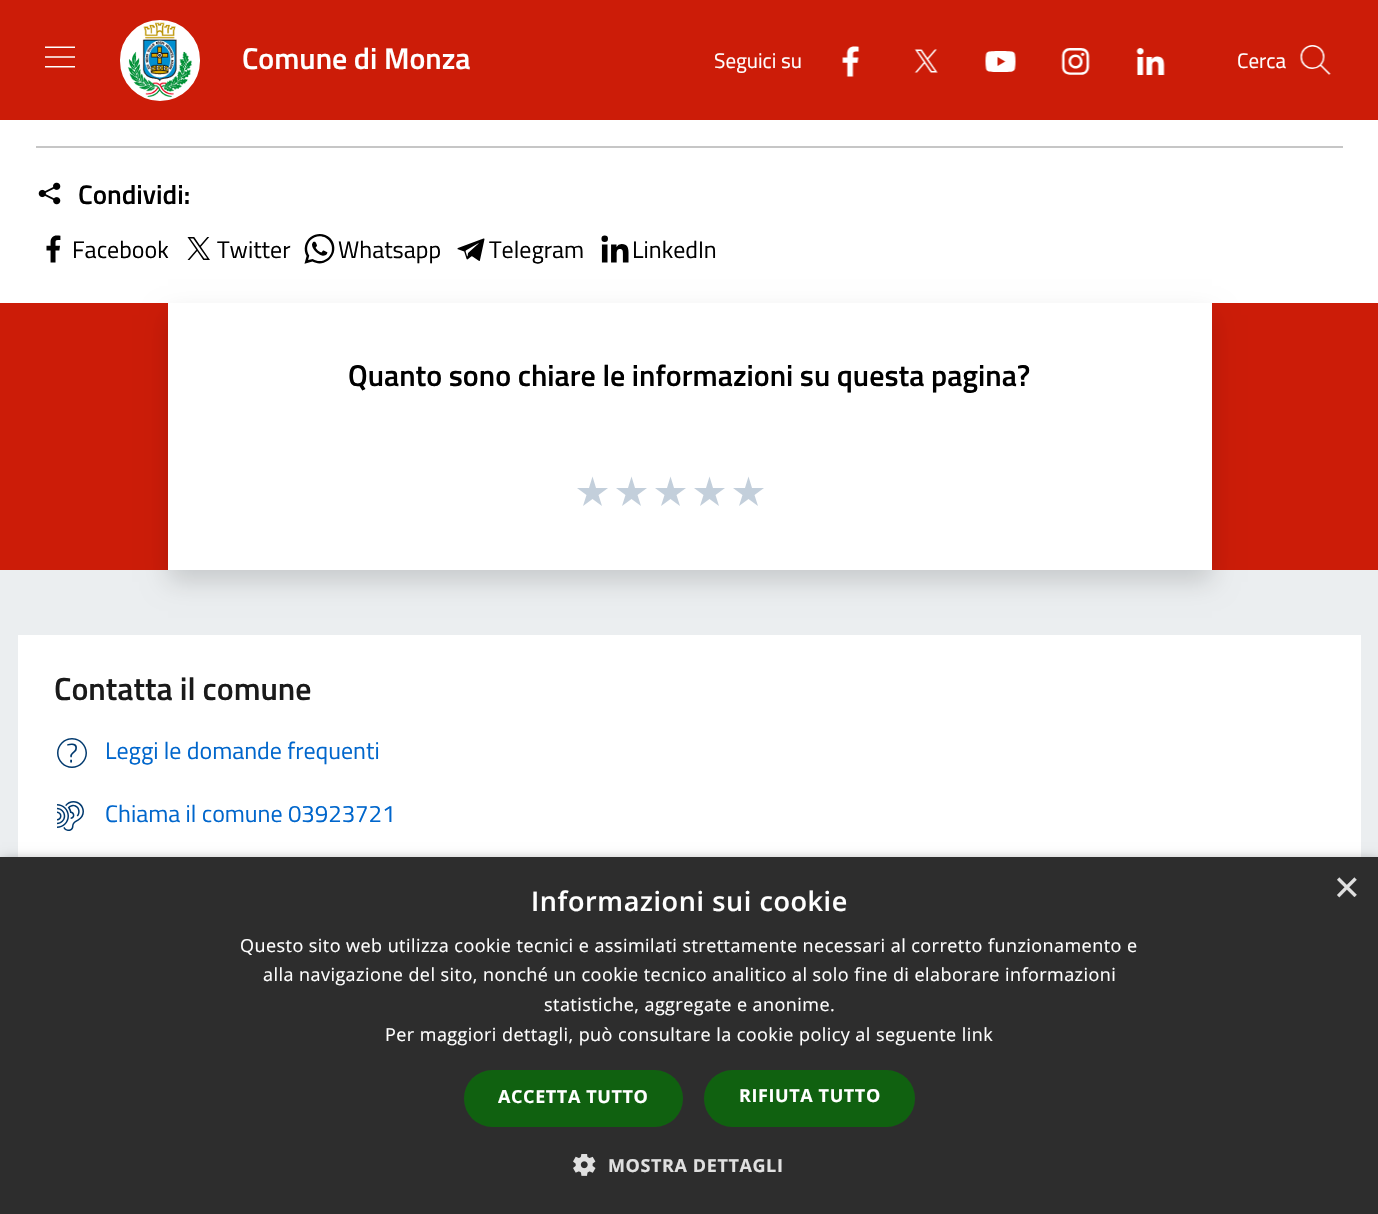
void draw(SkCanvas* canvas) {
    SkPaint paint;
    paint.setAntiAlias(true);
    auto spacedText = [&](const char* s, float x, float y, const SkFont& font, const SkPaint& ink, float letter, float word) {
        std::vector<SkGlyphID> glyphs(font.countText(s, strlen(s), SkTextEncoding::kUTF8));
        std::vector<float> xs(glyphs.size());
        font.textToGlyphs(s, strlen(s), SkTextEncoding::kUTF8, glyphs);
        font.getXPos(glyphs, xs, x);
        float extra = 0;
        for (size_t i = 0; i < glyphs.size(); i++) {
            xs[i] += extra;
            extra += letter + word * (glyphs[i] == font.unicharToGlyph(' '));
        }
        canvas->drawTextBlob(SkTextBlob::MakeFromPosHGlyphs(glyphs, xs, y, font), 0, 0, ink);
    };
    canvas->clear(0xFFFFFFFF);
    paint.setColor(0xFFCC1C08);
    canvas->drawRect(SkRect::MakeXYWH(0, 0, 1378, 120), paint);
    canvas->drawImageRect(SkImages::DeferredFromEncodedData(SkData::MakeFromFileName("img1.png")), SkRect::MakeXYWH(45, 46, 30, 22), SkSamplingOptions());
    paint.setColor(0xFFFFFFFF);
    canvas->drawRoundRect(SkRect::MakeXYWH(121, 21, 78, 79), 39, 39, paint);
    paint.setStyle(SkPaint::kStroke_Style);
    paint.setStrokeWidth(2);
    canvas->drawRoundRect(SkRect::MakeXYWH(121, 21, 78, 79), 39, 39, paint);
    canvas->drawImageRect(SkImages::DeferredFromEncodedData(SkData::MakeFromFileName("img2.png")), SkRect::MakeXYWH(127, 22, 66, 76), SkSamplingOptions());
    SkFont font1(fontMgr->matchFamilyStyle("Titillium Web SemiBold", SkFontStyle(600, SkFontStyle::kNormal_Width, SkFontStyle::kUpright_Slant)), 30);
    font1.setSubpixel(true);
    paint.setStyle(SkPaint::kFill_Style);
    canvas->drawString("Comune di Monza", 242, 69, font1, paint);
    SkFont font2(fontMgr->matchFamilyStyle("Titillium Web", SkFontStyle::Normal()), 21);
    font2.setSubpixel(true);
    canvas->drawString("Seguici su", 714, 68, font2, paint);
    canvas->drawImageRect(SkImages::DeferredFromEncodedData(SkData::MakeFromFileName("img3.png")), SkRect::MakeXYWH(842, 46, 18, 31), SkSamplingOptions());
    canvas->drawImageRect(SkImages::DeferredFromEncodedData(SkData::MakeFromFileName("img4.png")), SkRect::MakeXYWH(914, 49, 24, 24), SkSamplingOptions());
    canvas->drawImageRect(SkImages::DeferredFromEncodedData(SkData::MakeFromFileName("img5.png")), SkRect::MakeXYWH(985, 51, 31, 21), SkSamplingOptions());
    canvas->drawImageRect(SkImages::DeferredFromEncodedData(SkData::MakeFromFileName("img6.png")), SkRect::MakeXYWH(1061, 48, 29, 27), SkSamplingOptions());
    canvas->drawImageRect(SkImages::DeferredFromEncodedData(SkData::MakeFromFileName("img7.png")), SkRect::MakeXYWH(1136, 48, 29, 27), SkSamplingOptions());
    canvas->drawString("Cerca", 1237, 68, font2, paint);
    canvas->drawImageRect(SkImages::DeferredFromEncodedData(SkData::MakeFromFileName("img8.png")), SkRect::MakeXYWH(1300, 45, 31, 30), SkSamplingOptions());
    paint.setColor(0xFFC6C6C6);
    canvas->drawRect(SkRect::MakeXYWH(36, 146, 1307, 2), paint);
    canvas->drawImageRect(SkImages::DeferredFromEncodedData(SkData::MakeFromFileName("img9.png")), SkRect::MakeXYWH(38, 182, 23, 23), SkSamplingOptions());
    SkFont font3(fontMgr->matchFamilyStyle("Titillium Web SemiBold", SkFontStyle(600, SkFontStyle::kNormal_Width, SkFontStyle::kUpright_Slant)), 27);
    font3.setSubpixel(true);
    paint.setColor(0xFF000000);
    canvas->drawString("Condividi:", 78, 204, font3, paint);
    canvas->drawImageRect(SkImages::DeferredFromEncodedData(SkData::MakeFromFileName("img10.png")), SkRect::MakeXYWH(46, 235, 15, 28), SkSamplingOptions());
    SkFont font4(fontMgr->matchFamilyStyle("Titillium Web", SkFontStyle::Normal()), 24);
    font4.setSubpixel(true);
    canvas->drawString("Facebook", 72, 258, font4, paint);
    canvas->drawImageRect(SkImages::DeferredFromEncodedData(SkData::MakeFromFileName("img11.png")), SkRect::MakeXYWH(187, 237, 23, 23), SkSamplingOptions());
    canvas->drawString("Twitter", 217, 258, font4, paint);
    canvas->drawImageRect(SkImages::DeferredFromEncodedData(SkData::MakeFromFileName("img12.png")), SkRect::MakeXYWH(304, 234, 31, 30), SkSamplingOptions());
    canvas->drawString("Whatsapp", 338, 258, font4, paint);
    canvas->drawImageRect(SkImages::DeferredFromEncodedData(SkData::MakeFromFileName("img13.png")), SkRect::MakeXYWH(457, 238, 28, 23), SkSamplingOptions());
    canvas->drawString("Telegram", 489, 258, font4, paint);
    canvas->drawImageRect(SkImages::DeferredFromEncodedData(SkData::MakeFromFileName("img14.png")), SkRect::MakeXYWH(601, 235, 28, 28), SkSamplingOptions());
    canvas->drawString("LinkedIn", 632, 258, font4, paint);
    paint.setColor(0xFFCC1C08);
    canvas->drawRect(SkRect::MakeXYWH(0, 303, 1378, 267), paint);
    paint.setColor(0xFFEBEEF0);
    canvas->drawRect(SkRect::MakeXYWH(0, 570, 1378, 287), paint);
    paint.setColor(0x26000000);
    paint.setMaskFilter(SkMaskFilter::MakeBlur(kNormal_SkBlurStyle, 12));
    canvas->drawRect(SkRect::MakeXYWH(168, 315, 1044, 267), paint);
    paint.setMaskFilter(nullptr);
    paint.setColor(0xFFFFFFFF);
    canvas->drawRect(SkRect::MakeXYWH(168, 303, 1044, 267), paint);
    paint.setColor(0xFF000000);
    canvas->drawString("Quanto sono chiare le informazioni su questa pagina?", 348, 386, font1, paint);
    paint.setColor(0xFFC3CFDB);
    canvas->drawPath(SkPathBuilder().moveTo(592.5f, 476.5f).lineTo(589, 488).lineTo(577, 488).lineTo(586.5f, 495).lineTo(583, 506).lineTo(592.5f, 499).lineTo(602, 506).lineTo(598.5f, 495).lineTo(608, 488).lineTo(596, 488).close().detach(), paint);
    canvas->drawPath(SkPathBuilder().moveTo(631.5f, 476.5f).lineTo(628, 488).lineTo(616, 488).lineTo(625.5f, 495).lineTo(622, 506).lineTo(631.5f, 499).lineTo(641, 506).lineTo(637.5f, 495).lineTo(647, 488).lineTo(635, 488).close().detach(), paint);
    canvas->drawPath(SkPathBuilder().moveTo(670.5f, 476.5f).lineTo(667, 488).lineTo(655, 488).lineTo(664.5f, 495).lineTo(661, 506).lineTo(670.5f, 499).lineTo(680, 506).lineTo(676.5f, 495).lineTo(686, 488).lineTo(674, 488).close().detach(), paint);
    canvas->drawPath(SkPathBuilder().moveTo(709.5f, 476.5f).lineTo(706, 488).lineTo(694, 488).lineTo(703.5f, 495).lineTo(700, 506).lineTo(709.5f, 499).lineTo(719, 506).lineTo(715.5f, 495).lineTo(725, 488).lineTo(713, 488).close().detach(), paint);
    canvas->drawPath(SkPathBuilder().moveTo(748.5f, 476.5f).lineTo(745, 488).lineTo(733, 488).lineTo(742.5f, 495).lineTo(739, 506).lineTo(748.5f, 499).lineTo(758, 506).lineTo(754.5f, 495).lineTo(764, 488).lineTo(752, 488).close().detach(), paint);
    paint.setColor(0xFFFFFFFF);
    canvas->drawRect(SkRect::MakeXYWH(18, 635, 1343, 222), paint);
    SkFont font5(fontMgr->matchFamilyStyle("Titillium Web SemiBold", SkFontStyle(600, SkFontStyle::kNormal_Width, SkFontStyle::kUpright_Slant)), 32);
    font5.setSubpixel(true);
    paint.setColor(0xFF1A1A1A);
    canvas->drawString("Contatta il comune", 54, 700, font5, paint);
    canvas->drawImageRect(SkImages::DeferredFromEncodedData(SkData::MakeFromFileName("img15.png")), SkRect::MakeXYWH(57, 738, 30, 30), SkSamplingOptions());
    paint.setColor(0xFF0066CC);
    canvas->drawString("Leggi le domande frequenti", 105, 759, font4, paint);
    canvas->drawImageRect(SkImages::DeferredFromEncodedData(SkData::MakeFromFileName("img16.png")), SkRect::MakeXYWH(57, 801, 27, 30), SkSamplingOptions());
    canvas->drawString("Chiama il comune 03923721", 105, 822, font4, paint);
    paint.setColor(0x59000000);
    paint.setMaskFilter(SkMaskFilter::MakeBlur(kNormal_SkBlurStyle, 6));
    canvas->drawRect(SkRect::MakeXYWH(2, 860, 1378, 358), paint);
    paint.setMaskFilter(nullptr);
    paint.setColor(0xFF2D2D2D);
    canvas->drawRect(SkRect::MakeXYWH(0, 857, 1378, 357), paint);
    SkFont font6(fontMgr->matchFamilyStyle("Liberation Sans", SkFontStyle::Normal()), 44);
    font6.setSubpixel(true);
    paint.setColor(0xFFE0E0E0);
    canvas->drawString("×", 1334, 902, font6, paint);
    SkFont font7(fontMgr->matchFamilyStyle("Open Sans", SkFontStyle(600, SkFontStyle::kNormal_Width, SkFontStyle::kUpright_Slant)), 27);
    font7.setSubpixel(true);
    paint.setColor(0xFFFFFFFF);
    spacedText("Informazioni sui cookie", 531, 911, font7, paint, 0.6f, 0);
    SkFont font8(fontMgr->matchFamilyStyle("Open Sans", SkFontStyle::Normal()), 18);
    font8.setSubpixel(true);
    spacedText("Questo sito web utilizza cookie tecnici e assimilati strettamente necessari al corretto funzionamento e", 240, 952, font8, paint, 0.45f, 0);
    spacedText("alla navigazione del sito, nonché un cookie tecnico analitico al solo fine di elaborare informazioni", 263, 981, font8, paint, 0.45f, 0);
    spacedText("statistiche, aggregate e anonime.", 544, 1011, font8, paint, 0.45f, 0);
    spacedText("Per maggiori dettagli, può consultare la cookie policy al seguente link", 385, 1041, font8, paint, 0.45f, 0);
    paint.setColor(0xFF106110);
    canvas->drawRoundRect(SkRect::MakeXYWH(464, 1070, 219, 57), 28.5f, 28.5f, paint);
    SkFont font9(fontMgr->matchFamilyStyle("Open Sans", SkFontStyle::Bold()), 18);
    font9.setSubpixel(true);
    paint.setColor(0xFFFFFFFF);
    spacedText("ACCETTA TUTTO", 498, 1103, font9, paint, 0.6f, 0);
    paint.setColor(0xFF106110);
    canvas->drawRoundRect(SkRect::MakeXYWH(704, 1070, 211, 57), 28.5f, 28.5f, paint);
    paint.setColor(0xFFFFFFFF);
    spacedText("RIFIUTA TUTTO", 739, 1102, font9, paint, 0.6f, 0);
    canvas->drawImageRect(SkImages::DeferredFromEncodedData(SkData::MakeFromFileName("img17.png")), SkRect::MakeXYWH(573, 1154, 23, 22), SkSamplingOptions());
    paint.setColor(0xFFE0E0E0);
    spacedText("MOSTRA DETTAGLI", 608, 1172, font9, paint, 0.6f, 0);
}
